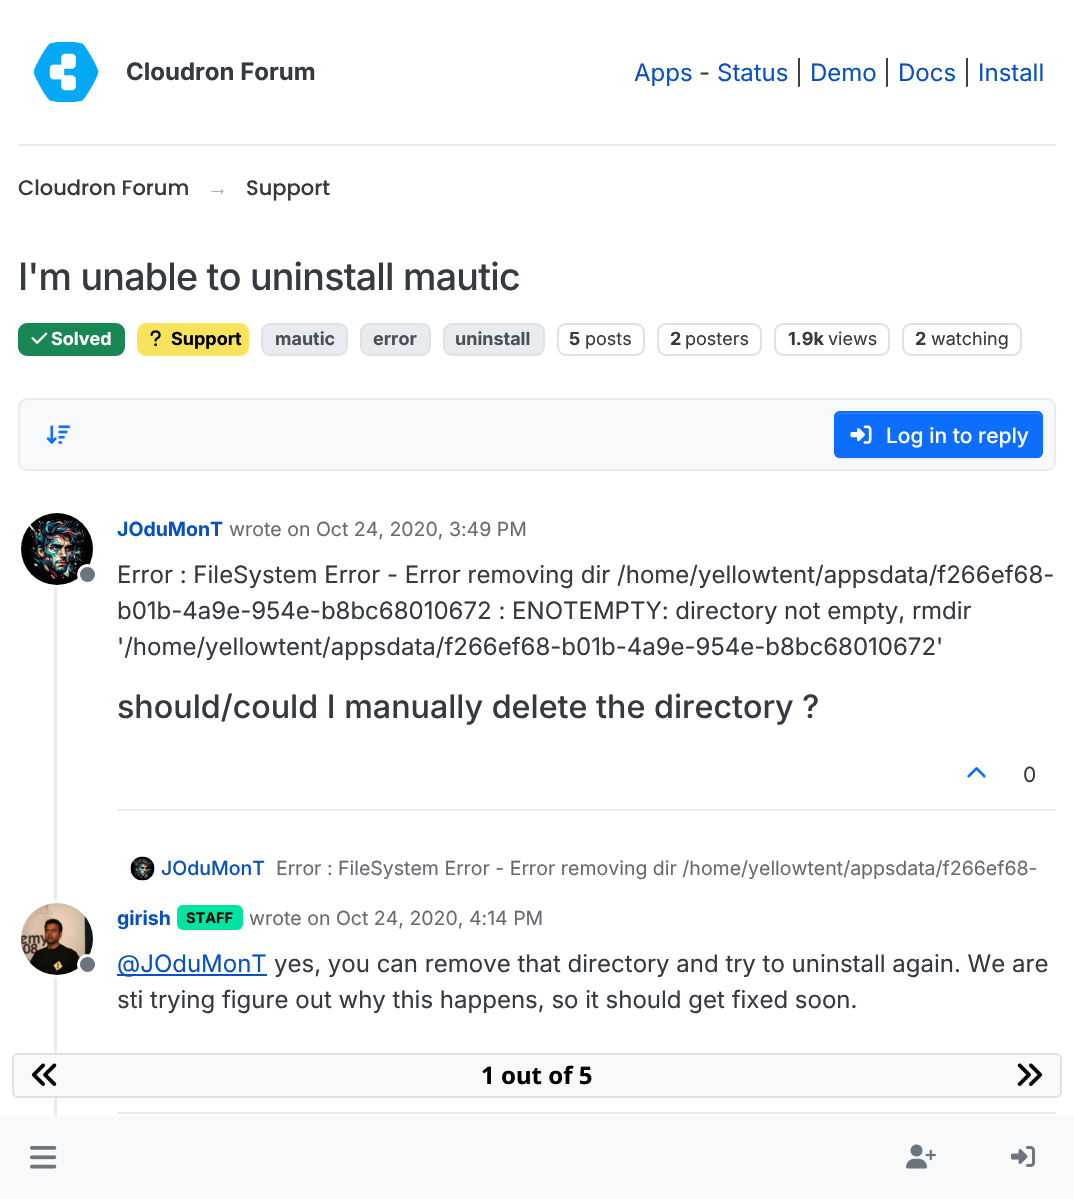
void draw(SkCanvas* canvas) {
    SkPaint paint;
    paint.setAntiAlias(true);
    auto spacedText = [&](const char* s, float x, float y, const SkFont& font, const SkPaint& ink, float letter, float word) {
        std::vector<SkGlyphID> glyphs(font.countText(s, strlen(s), SkTextEncoding::kUTF8));
        std::vector<float> xs(glyphs.size());
        font.textToGlyphs(s, strlen(s), SkTextEncoding::kUTF8, glyphs);
        font.getXPos(glyphs, xs, x);
        float extra = 0;
        for (size_t i = 0; i < glyphs.size(); i++) {
            xs[i] += extra;
            extra += letter + word * (glyphs[i] == font.unicharToGlyph(' '));
        }
        canvas->drawTextBlob(SkTextBlob::MakeFromPosHGlyphs(glyphs, xs, y, font), 0, 0, ink);
    };
    canvas->clear(0xFFFFFFFF);
    paint.setColor(0xFFE9ECEF);
    canvas->drawRect(SkRect::MakeXYWH(18, 144, 1038, 2), paint);
    canvas->drawImageRect(SkImages::DeferredFromEncodedData(SkData::MakeFromFileName("img1.png")), SkRect::MakeXYWH(33, 41, 66, 62), SkSamplingOptions());
    SkFont font1(fontMgr->matchFamilyStyle("Inter", SkFontStyle::Bold()), 24);
    font1.setSubpixel(true);
    paint.setColor(0xFF343A40);
    canvas->drawString("Cloudron Forum", 126, 80, font1, paint);
    SkFont font2(fontMgr->matchFamilyStyle("Inter", SkFontStyle::Normal()), 24);
    font2.setSubpixel(true);
    paint.setColor(0xFF0951BE);
    canvas->drawString("Apps", 634, 81, font2, paint);
    paint.setColor(0xFF343A40);
    canvas->drawString("-", 699, 81, font2, paint);
    paint.setColor(0xFF0951BE);
    canvas->drawString("Status", 717, 81, font2, paint);
    paint.setColor(0xFF343A40);
    canvas->drawString("|", 795, 81, font2, paint);
    paint.setColor(0xFF0951BE);
    canvas->drawString("Demo", 810, 81, font2, paint);
    paint.setColor(0xFF343A40);
    canvas->drawString("|", 883, 81, font2, paint);
    paint.setColor(0xFF0951BE);
    canvas->drawString("Docs", 898, 81, font2, paint);
    paint.setColor(0xFF343A40);
    canvas->drawString("|", 963, 81, font2, paint);
    paint.setColor(0xFF0951BE);
    canvas->drawString("Install", 978, 81, font2, paint);
    SkFont font3(fontMgr->matchFamilyStyle("Poppins", SkFontStyle(500, SkFontStyle::kNormal_Width, SkFontStyle::kUpright_Slant)), 21);
    font3.setSubpixel(true);
    paint.setColor(0xFF343A40);
    canvas->drawString("Cloudron Forum", 18, 195, font3, paint);
    SkFont font4(fontMgr->matchFamilyStyle("Liberation Sans", SkFontStyle::Normal()), 21);
    font4.setSubpixel(true);
    paint.setColor(0xFFADB5BD);
    canvas->drawString("→", 207, 195, font4, paint);
    paint.setColor(0xFF343A40);
    canvas->drawString("Support", 246, 195, font3, paint);
    SkFont font5(fontMgr->matchFamilyStyle("Inter", SkFontStyle(500, SkFontStyle::kNormal_Width, SkFontStyle::kUpright_Slant)), 37.6f);
    font5.setSubpixel(true);
    spacedText("I'm unable to uninstall mautic", 18, 290, font5, paint, -0.75f, 0);
    paint.setColor(0xFF198754);
    canvas->drawRoundRect(SkRect::MakeXYWH(19, 324, 105, 31), 8, 8, paint);
    paint.setStyle(SkPaint::kStroke_Style);
    paint.setStrokeWidth(2);
    canvas->drawRoundRect(SkRect::MakeXYWH(19, 324, 105, 31), 8, 8, paint);
    canvas->drawImageRect(SkImages::DeferredFromEncodedData(SkData::MakeFromFileName("img2.png")), SkRect::MakeXYWH(31, 332, 17, 12), SkSamplingOptions());
    SkFont font6(fontMgr->matchFamilyStyle("Inter", SkFontStyle::Bold()), 18);
    font6.setSubpixel(true);
    paint.setStyle(SkPaint::kFill_Style);
    paint.setColor(0xFFFFFFFF);
    canvas->drawString("Solved", 51, 345, font6, paint);
    paint.setColor(0xFFF8E45C);
    canvas->drawRoundRect(SkRect::MakeXYWH(138, 324, 110, 31), 8, 8, paint);
    paint.setStyle(SkPaint::kStroke_Style);
    canvas->drawRoundRect(SkRect::MakeXYWH(138, 324, 110, 31), 8, 8, paint);
    canvas->drawImageRect(SkImages::DeferredFromEncodedData(SkData::MakeFromFileName("img3.png")), SkRect::MakeXYWH(150, 330, 11, 17), SkSamplingOptions());
    paint.setStyle(SkPaint::kFill_Style);
    paint.setColor(0xFF000000);
    canvas->drawString("Support", 171, 345, font6, paint);
    paint.setColor(0xFFE9ECEF);
    canvas->drawRoundRect(SkRect::MakeXYWH(262, 324, 85, 31), 8, 8, paint);
    paint.setStyle(SkPaint::kStroke_Style);
    paint.setColor(0xFFDEE2E6);
    canvas->drawRoundRect(SkRect::MakeXYWH(262, 324, 85, 31), 8, 8, paint);
    paint.setStyle(SkPaint::kFill_Style);
    paint.setColor(0xFF495057);
    canvas->drawString("mautic", 275, 345, font6, paint);
    paint.setColor(0xFFE9ECEF);
    canvas->drawRoundRect(SkRect::MakeXYWH(361, 324, 69, 31), 8, 8, paint);
    paint.setStyle(SkPaint::kStroke_Style);
    paint.setColor(0xFFDEE2E6);
    canvas->drawRoundRect(SkRect::MakeXYWH(361, 324, 69, 31), 8, 8, paint);
    paint.setStyle(SkPaint::kFill_Style);
    paint.setColor(0xFF495057);
    canvas->drawString("error", 373, 345, font6, paint);
    paint.setColor(0xFFE9ECEF);
    canvas->drawRoundRect(SkRect::MakeXYWH(444, 324, 100, 31), 8, 8, paint);
    paint.setStyle(SkPaint::kStroke_Style);
    paint.setColor(0xFFDEE2E6);
    canvas->drawRoundRect(SkRect::MakeXYWH(444, 324, 100, 31), 8, 8, paint);
    paint.setStyle(SkPaint::kFill_Style);
    paint.setColor(0xFF495057);
    canvas->drawString("uninstall", 455, 345, font6, paint);
    paint.setStyle(SkPaint::kStroke_Style);
    paint.setColor(0xFFDEE2E6);
    canvas->drawRoundRect(SkRect::MakeXYWH(558, 324, 86, 31), 8, 8, paint);
    paint.setStyle(SkPaint::kFill_Style);
    paint.setColor(0xFF343A40);
    canvas->drawString("5", 569, 345, font6, paint);
    SkFont font7(fontMgr->matchFamilyStyle("Inter", SkFontStyle::Normal()), 18);
    font7.setSubpixel(true);
    canvas->drawString("posts", 585, 345, font7, paint);
    paint.setStyle(SkPaint::kStroke_Style);
    paint.setColor(0xFFDEE2E6);
    canvas->drawRoundRect(SkRect::MakeXYWH(658, 324, 103, 31), 8, 8, paint);
    paint.setStyle(SkPaint::kFill_Style);
    paint.setColor(0xFF343A40);
    canvas->drawString("2", 670, 345, font6, paint);
    canvas->drawString("posters", 685, 345, font7, paint);
    paint.setStyle(SkPaint::kStroke_Style);
    paint.setColor(0xFFDEE2E6);
    canvas->drawRoundRect(SkRect::MakeXYWH(775, 324, 114, 31), 8, 8, paint);
    paint.setStyle(SkPaint::kFill_Style);
    paint.setColor(0xFF343A40);
    canvas->drawString("1.9k", 788, 345, font6, paint);
    canvas->drawString("views", 828, 345, font7, paint);
    paint.setStyle(SkPaint::kStroke_Style);
    paint.setColor(0xFFDEE2E6);
    canvas->drawRoundRect(SkRect::MakeXYWH(903, 324, 118, 31), 8, 8, paint);
    paint.setStyle(SkPaint::kFill_Style);
    paint.setColor(0xFF343A40);
    canvas->drawString("2", 915, 345, font6, paint);
    canvas->drawString("watching", 931, 345, font7, paint);
    paint.setColor(0xFFF8F9FA);
    canvas->drawRoundRect(SkRect::MakeXYWH(19, 399, 1036, 71), 8, 8, paint);
    paint.setStyle(SkPaint::kStroke_Style);
    paint.setColor(0xFFE9ECEF);
    canvas->drawRoundRect(SkRect::MakeXYWH(19, 399, 1036, 71), 8, 8, paint);
    canvas->drawImageRect(SkImages::DeferredFromEncodedData(SkData::MakeFromFileName("img4.png")), SkRect::MakeXYWH(46, 425, 25, 19), SkSamplingOptions());
    paint.setStyle(SkPaint::kFill_Style);
    paint.setColor(0x12000000);
    paint.setMaskFilter(SkMaskFilter::MakeBlur(kNormal_SkBlurStyle, 1));
    canvas->drawRoundRect(SkRect::MakeXYWH(834, 413, 209, 46), 6, 6, paint);
    paint.setMaskFilter(nullptr);
    paint.setColor(0xFF0D6EFD);
    canvas->drawRoundRect(SkRect::MakeXYWH(834, 411, 209, 47), 6, 6, paint);
    paint.setColor(0xFF3184FD);
    canvas->drawPath(SkPathBuilder().moveTo(840, 414).lineTo(1036, 414).cubicTo(1039, 414, 1041, 416, 1041, 418).cubicTo(1041, 415, 1039, 413, 1036, 413).lineTo(841, 413).cubicTo(838, 413, 836, 415, 836, 418).cubicTo(836, 416, 838, 414, 840, 414).close().detach(), paint);
    paint.setStyle(SkPaint::kStroke_Style);
    paint.setColor(0xFF0D6EFD);
    canvas->drawRoundRect(SkRect::MakeXYWH(835, 412, 207, 45), 5, 5, paint);
    canvas->drawImageRect(SkImages::DeferredFromEncodedData(SkData::MakeFromFileName("img5.png")), SkRect::MakeXYWH(850, 425, 22, 19), SkSamplingOptions());
    SkFont font8(fontMgr->matchFamilyStyle("Inter", SkFontStyle(500, SkFontStyle::kNormal_Width, SkFontStyle::kUpright_Slant)), 21);
    font8.setSubpixel(true);
    paint.setStyle(SkPaint::kFill_Style);
    paint.setColor(0xFFFFFFFF);
    canvas->drawString("Log in to reply", 886, 443, font8, paint);
    paint.setColor(0xFFE9ECEF);
    canvas->drawRect(SkRect::MakeXYWH(54, 513, 3, 603), paint);
    paint.setStyle(SkPaint::kStroke_Style);
    paint.setStrokeWidth(3);
    paint.setColor(0xFFFFFFFF);
    canvas->drawCircle(57, 549, 37.5f, paint);
    canvas->drawImageRect(SkImages::DeferredFromEncodedData(SkData::MakeFromFileName("img6.png")), SkRect::MakeXYWH(21, 513, 72, 72), SkSamplingOptions());
    paint.setStyle(SkPaint::kFill_Style);
    paint.setColor(0xFF6C757D);
    canvas->drawCircle(87.5f, 574.5f, 9, paint);
    paint.setStyle(SkPaint::kStroke_Style);
    paint.setColor(0xFFFFFFFF);
    canvas->drawCircle(87.5f, 574.5f, 9, paint);
    SkFont font9(fontMgr->matchFamilyStyle("Inter", SkFontStyle::Bold()), 19.5f);
    font9.setSubpixel(true);
    paint.setStyle(SkPaint::kFill_Style);
    paint.setColor(0xFF0951BE);
    canvas->drawString("JOduMonT", 117, 536, font9, paint);
    SkFont font10(fontMgr->matchFamilyStyle("Inter", SkFontStyle::Normal()), 19.5f);
    font10.setSubpixel(true);
    paint.setColor(0xFF676B70);
    canvas->drawString("wrote on Oct 24, 2020, 3:49 PM", 229, 536, font10, paint);
    paint.setColor(0xFF343A40);
    canvas->drawString("Error : FileSystem Error - Error removing dir /home/yellowtent/appsdata/f266ef68-", 117, 583, font2, paint);
    canvas->drawString("b01b-4a9e-954e-b8bc68010672 : ENOTEMPTY: directory not empty, rmdir", 117, 619, font2, paint);
    canvas->drawString("'/home/yellowtent/appsdata/f266ef68-b01b-4a9e-954e-b8bc68010672'", 117, 655, font2, paint);
    SkFont font11(fontMgr->matchFamilyStyle("Inter", SkFontStyle(500, SkFontStyle::kNormal_Width, SkFontStyle::kUpright_Slant)), 32.25f);
    font11.setSubpixel(true);
    canvas->drawString("should/could I manually delete the directory ?", 117, 718, font11, paint);
    paint.setColor(0xFFE9ECEF);
    canvas->drawRect(SkRect::MakeXYWH(117, 809, 939, 2), paint);
    canvas->drawImageRect(SkImages::DeferredFromEncodedData(SkData::MakeFromFileName("img7.png")), SkRect::MakeXYWH(967, 767, 19, 11), SkSamplingOptions());
    SkFont font12(fontMgr->matchFamilyStyle("Inter", SkFontStyle::Normal()), 21);
    font12.setSubpixel(true);
    paint.setColor(0xFF343A40);
    canvas->drawString("0", 1023, 782, font12, paint);
    canvas->drawImageRect(SkImages::DeferredFromEncodedData(SkData::MakeFromFileName("img8.png")), SkRect::MakeXYWH(130, 856, 25, 25), SkSamplingOptions());
    SkFont font13(fontMgr->matchFamilyStyle("Inter", SkFontStyle(500, SkFontStyle::kNormal_Width, SkFontStyle::kUpright_Slant)), 19.5f);
    font13.setSubpixel(true);
    paint.setColor(0xFF0951BE);
    canvas->drawString("JOduMonT", 161, 875, font13, paint);
    paint.setColor(0xFF676B70);
    canvas->drawString("Error : FileSystem Error - Error removing dir /home/yellowtent/appsdata/f266ef68-", 276, 875, font10, paint);
    paint.setStyle(SkPaint::kStroke_Style);
    paint.setColor(0xFFFFFFFF);
    canvas->drawCircle(57, 939, 37.5f, paint);
    canvas->drawImageRect(SkImages::DeferredFromEncodedData(SkData::MakeFromFileName("img9.png")), SkRect::MakeXYWH(21, 903, 72, 72), SkSamplingOptions());
    paint.setStyle(SkPaint::kFill_Style);
    paint.setColor(0xFF6C757D);
    canvas->drawCircle(87.5f, 964.5f, 9, paint);
    paint.setStyle(SkPaint::kStroke_Style);
    paint.setColor(0xFFFFFFFF);
    canvas->drawCircle(87.5f, 964.5f, 9, paint);
    paint.setStyle(SkPaint::kFill_Style);
    paint.setColor(0xFF0951BE);
    canvas->drawString("girish", 117, 925, font9, paint);
    paint.setColor(0xFF00E3A3);
    canvas->drawRoundRect(SkRect::MakeXYWH(177, 905, 66, 25), 6, 6, paint);
    SkFont font14(fontMgr->matchFamilyStyle("Inter", SkFontStyle::Bold()), 14.5f);
    font14.setSubpixel(true);
    paint.setColor(0xFF000000);
    canvas->drawString("STAFF", 186, 923, font14, paint);
    paint.setColor(0xFF676B70);
    canvas->drawString("wrote on Oct 24, 2020, 4:14 PM", 249, 925, font10, paint);
    paint.setColor(0xFF0951BE);
    canvas->drawRect(SkRect::MakeXYWH(117, 974, 150, 2), paint);
    canvas->drawString("@JOduMonT", 117, 972, font2, paint);
    paint.setColor(0xFF343A40);
    canvas->drawString("yes, you can remove that directory and try to uninstall again. We are", 274, 972, font2, paint);
    canvas->drawString("sti trying figure out why this happens, so it should get fixed soon.", 117, 1008, font2, paint);
    paint.setColor(0xFFE9ECEF);
    canvas->drawRect(SkRect::MakeXYWH(117, 1112, 939, 2), paint);
    paint.setColor(0xFFF8F9FA);
    canvas->drawRoundRect(SkRect::MakeXYWH(13, 1054, 1048, 43), 5, 5, paint);
    paint.setStyle(SkPaint::kStroke_Style);
    paint.setStrokeWidth(2);
    paint.setColor(0xFFDEE2E6);
    canvas->drawRoundRect(SkRect::MakeXYWH(13, 1054, 1048, 43), 5, 5, paint);
    canvas->drawImageRect(SkImages::DeferredFromEncodedData(SkData::MakeFromFileName("img10.png")), SkRect::MakeXYWH(31, 1063, 26, 23), SkSamplingOptions());
    SkFont font15(fontMgr->matchFamilyStyle("Noto Sans", SkFontStyle::Bold()), 24);
    font15.setSubpixel(true);
    paint.setStyle(SkPaint::kFill_Style);
    paint.setColor(0xFF000000);
    canvas->drawString("1 out of 5", 481, 1084, font15, paint);
    canvas->drawImageRect(SkImages::DeferredFromEncodedData(SkData::MakeFromFileName("img11.png")), SkRect::MakeXYWH(1017, 1063, 26, 23), SkSamplingOptions());
    paint.setColor(0xFFF8F9FA);
    canvas->drawRect(SkRect::MakeXYWH(0, 1116, 1074, 83), paint);
    canvas->drawImageRect(SkImages::DeferredFromEncodedData(SkData::MakeFromFileName("img12.png")), SkRect::MakeXYWH(30, 1146, 27, 23), SkSamplingOptions());
    canvas->drawImageRect(SkImages::DeferredFromEncodedData(SkData::MakeFromFileName("img13.png")), SkRect::MakeXYWH(906, 1144, 30, 25), SkSamplingOptions());
    canvas->drawImageRect(SkImages::DeferredFromEncodedData(SkData::MakeFromFileName("img14.png")), SkRect::MakeXYWH(1011, 1146, 24, 21), SkSamplingOptions());
}
